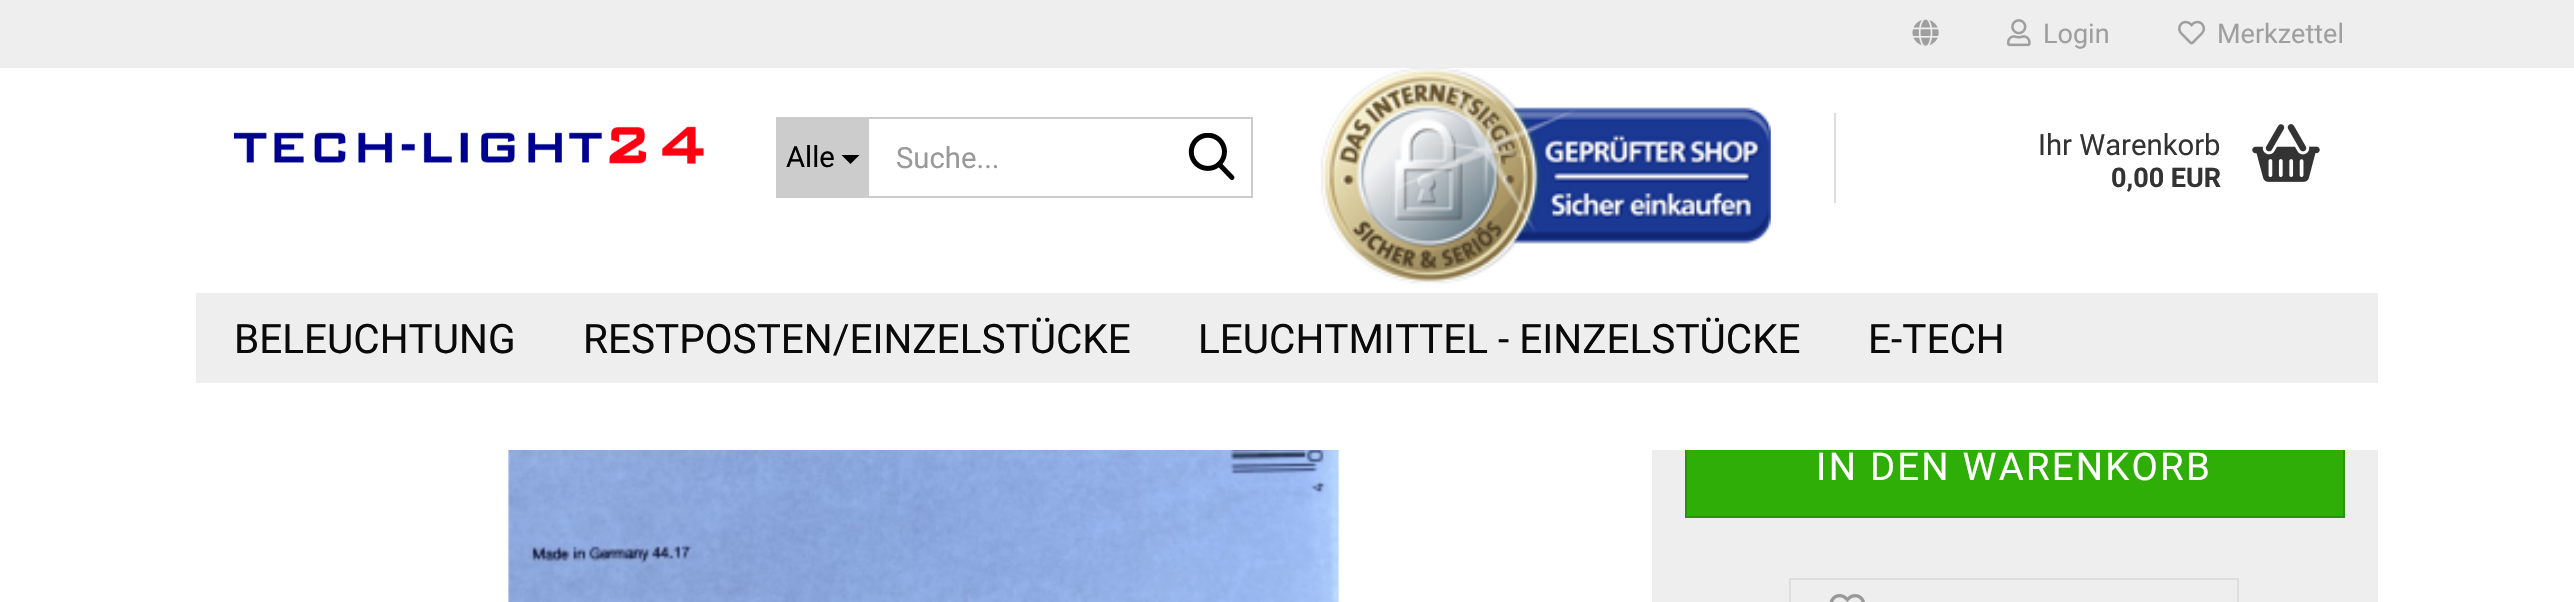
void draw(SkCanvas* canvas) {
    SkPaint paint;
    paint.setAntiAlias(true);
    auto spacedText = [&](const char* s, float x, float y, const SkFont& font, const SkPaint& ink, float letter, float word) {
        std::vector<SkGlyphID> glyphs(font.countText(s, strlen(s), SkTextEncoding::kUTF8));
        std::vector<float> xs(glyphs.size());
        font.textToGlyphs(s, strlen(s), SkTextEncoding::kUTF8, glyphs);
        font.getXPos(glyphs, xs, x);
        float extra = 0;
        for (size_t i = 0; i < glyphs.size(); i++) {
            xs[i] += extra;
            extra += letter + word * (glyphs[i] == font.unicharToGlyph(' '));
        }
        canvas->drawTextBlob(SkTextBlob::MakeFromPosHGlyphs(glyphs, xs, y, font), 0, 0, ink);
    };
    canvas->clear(0xFFFFFFFF);
    paint.setColor(0xFFEEEEEE);
    canvas->drawRect(SkRect::MakeXYWH(1652, 450, 726, 152), paint);
    paint.setColor(0xFF2EAE06);
    canvas->drawRect(SkRect::MakeXYWH(1687, 450, 656, 66), paint);
    paint.setStyle(SkPaint::kStroke_Style);
    paint.setStrokeWidth(2);
    paint.setColor(0xFF279505);
    canvas->drawRect(SkRect::MakeXYWH(1686, 417, 658, 100), paint);
    paint.setStyle(SkPaint::kFill_Style);
    paint.setColor(0xFFFFFFFF);
    canvas->drawRect(SkRect::MakeXYWH(1685, 416, 660, 34), paint);
    paint.setColor(0xFFEEEEEE);
    canvas->drawRect(SkRect::MakeXYWH(0, 0, 2574, 68), paint);
    canvas->drawImageRect(SkImages::DeferredFromEncodedData(SkData::MakeFromFileName("img1.png")), SkRect::MakeXYWH(1912, 19, 27, 27), SkSamplingOptions());
    canvas->drawImageRect(SkImages::DeferredFromEncodedData(SkData::MakeFromFileName("img2.png")), SkRect::MakeXYWH(2007, 19, 24, 28), SkSamplingOptions());
    SkFont font1(fontMgr->matchFamilyStyle("Roboto", SkFontStyle::Normal()), 27);
    font1.setSubpixel(true);
    paint.setColor(0xFF9F9F9F);
    canvas->drawString("Login", 2043, 43, font1, paint);
    canvas->drawImageRect(SkImages::DeferredFromEncodedData(SkData::MakeFromFileName("img3.png")), SkRect::MakeXYWH(2178, 20, 27, 25), SkSamplingOptions());
    canvas->drawString("Merkzettel", 2217, 43, font1, paint);
    canvas->drawImageRect(SkImages::DeferredFromEncodedData(SkData::MakeFromFileName("img4.png")), SkRect::MakeXYWH(233, 126, 471, 38), SkSamplingOptions());
    paint.setColor(0xFFCCCCCC);
    canvas->drawRect(SkRect::MakeXYWH(776, 117, 93, 81), paint);
    SkFont font2(fontMgr->matchFamilyStyle("Roboto", SkFontStyle::Normal()), 29.25f);
    font2.setSubpixel(true);
    paint.setColor(0xFF000000);
    canvas->drawString("Alle", 786, 167, font2, paint);
    canvas->drawPath(SkPathBuilder().moveTo(841.5f, 155).lineTo(859.5f, 155).lineTo(850.5f, 164).close().detach(), paint);
    paint.setColor(0xFFCCCCCC);
    canvas->drawRect(SkRect::MakeXYWH(869, 117, 384, 2), paint);
    canvas->drawRect(SkRect::MakeXYWH(1251, 117, 2, 81), paint);
    canvas->drawRect(SkRect::MakeXYWH(869, 196, 384, 2), paint);
    paint.setColor(0xFF999999);
    canvas->drawString("Suche...", 896, 168, font2, paint);
    canvas->drawImageRect(SkImages::DeferredFromEncodedData(SkData::MakeFromFileName("img5.png")), SkRect::MakeXYWH(1188, 133, 47, 47), SkSamplingOptions());
    canvas->drawImageRect(SkImages::DeferredFromEncodedData(SkData::MakeFromFileName("img6.png")), SkRect::MakeXYWH(1320, 67, 451, 217), SkSamplingOptions());
    paint.setColor(0xFFDDDDDD);
    canvas->drawRect(SkRect::MakeXYWH(1834, 113, 2, 90), paint);
    paint.setColor(0xFF333333);
    canvas->drawString("Ihr Warenkorb", 2038, 155, font2, paint);
    SkFont font3(fontMgr->matchFamilyStyle("Roboto", SkFontStyle::Bold()), 27);
    font3.setSubpixel(true);
    canvas->drawString("0,00 EUR", 2111, 187, font3, paint);
    canvas->drawImageRect(SkImages::DeferredFromEncodedData(SkData::MakeFromFileName("img7.png")), SkRect::MakeXYWH(2252, 124, 68, 58), SkSamplingOptions());
    paint.setColor(0xFFEEEEEE);
    canvas->drawRect(SkRect::MakeXYWH(196, 293, 2182, 90), paint);
    SkFont font4(fontMgr->matchFamilyStyle("Roboto", SkFontStyle::Normal()), 40.5f);
    font4.setSubpixel(true);
    paint.setColor(0xFF0A0A0A);
    canvas->drawString("BELEUCHTUNG", 234, 353, font4, paint);
    canvas->drawString("RESTPOSTEN/EINZELSTÜCKE", 583, 353, font4, paint);
    canvas->drawString("LEUCHTMITTEL - EINZELSTÜCKE", 1198, 353, font4, paint);
    canvas->drawString("E-TECH", 1868, 353, font4, paint);
    canvas->drawImageRect(SkImages::DeferredFromEncodedData(SkData::MakeFromFileName("img8.png")), SkRect::MakeXYWH(508, 450, 831, 152), SkSamplingOptions());
    SkFont font5(fontMgr->matchFamilyStyle("Roboto", SkFontStyle::Normal()), 38.25f);
    font5.setSubpixel(true);
    paint.setColor(0xFFFFFFFF);
    spacedText("IN DEN WARENKORB", 1816, 480, font5, paint, 2.25f, 0);
    paint.setStyle(SkPaint::kStroke_Style);
    paint.setColor(0xFFDDDDDD);
    canvas->drawRect(SkRect::MakeXYWH(1790, 579, 448, 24), paint);
    canvas->drawImageRect(SkImages::DeferredFromEncodedData(SkData::MakeFromFileName("img9.png")), SkRect::MakeXYWH(1829, 594, 36, 8), SkSamplingOptions());
}
